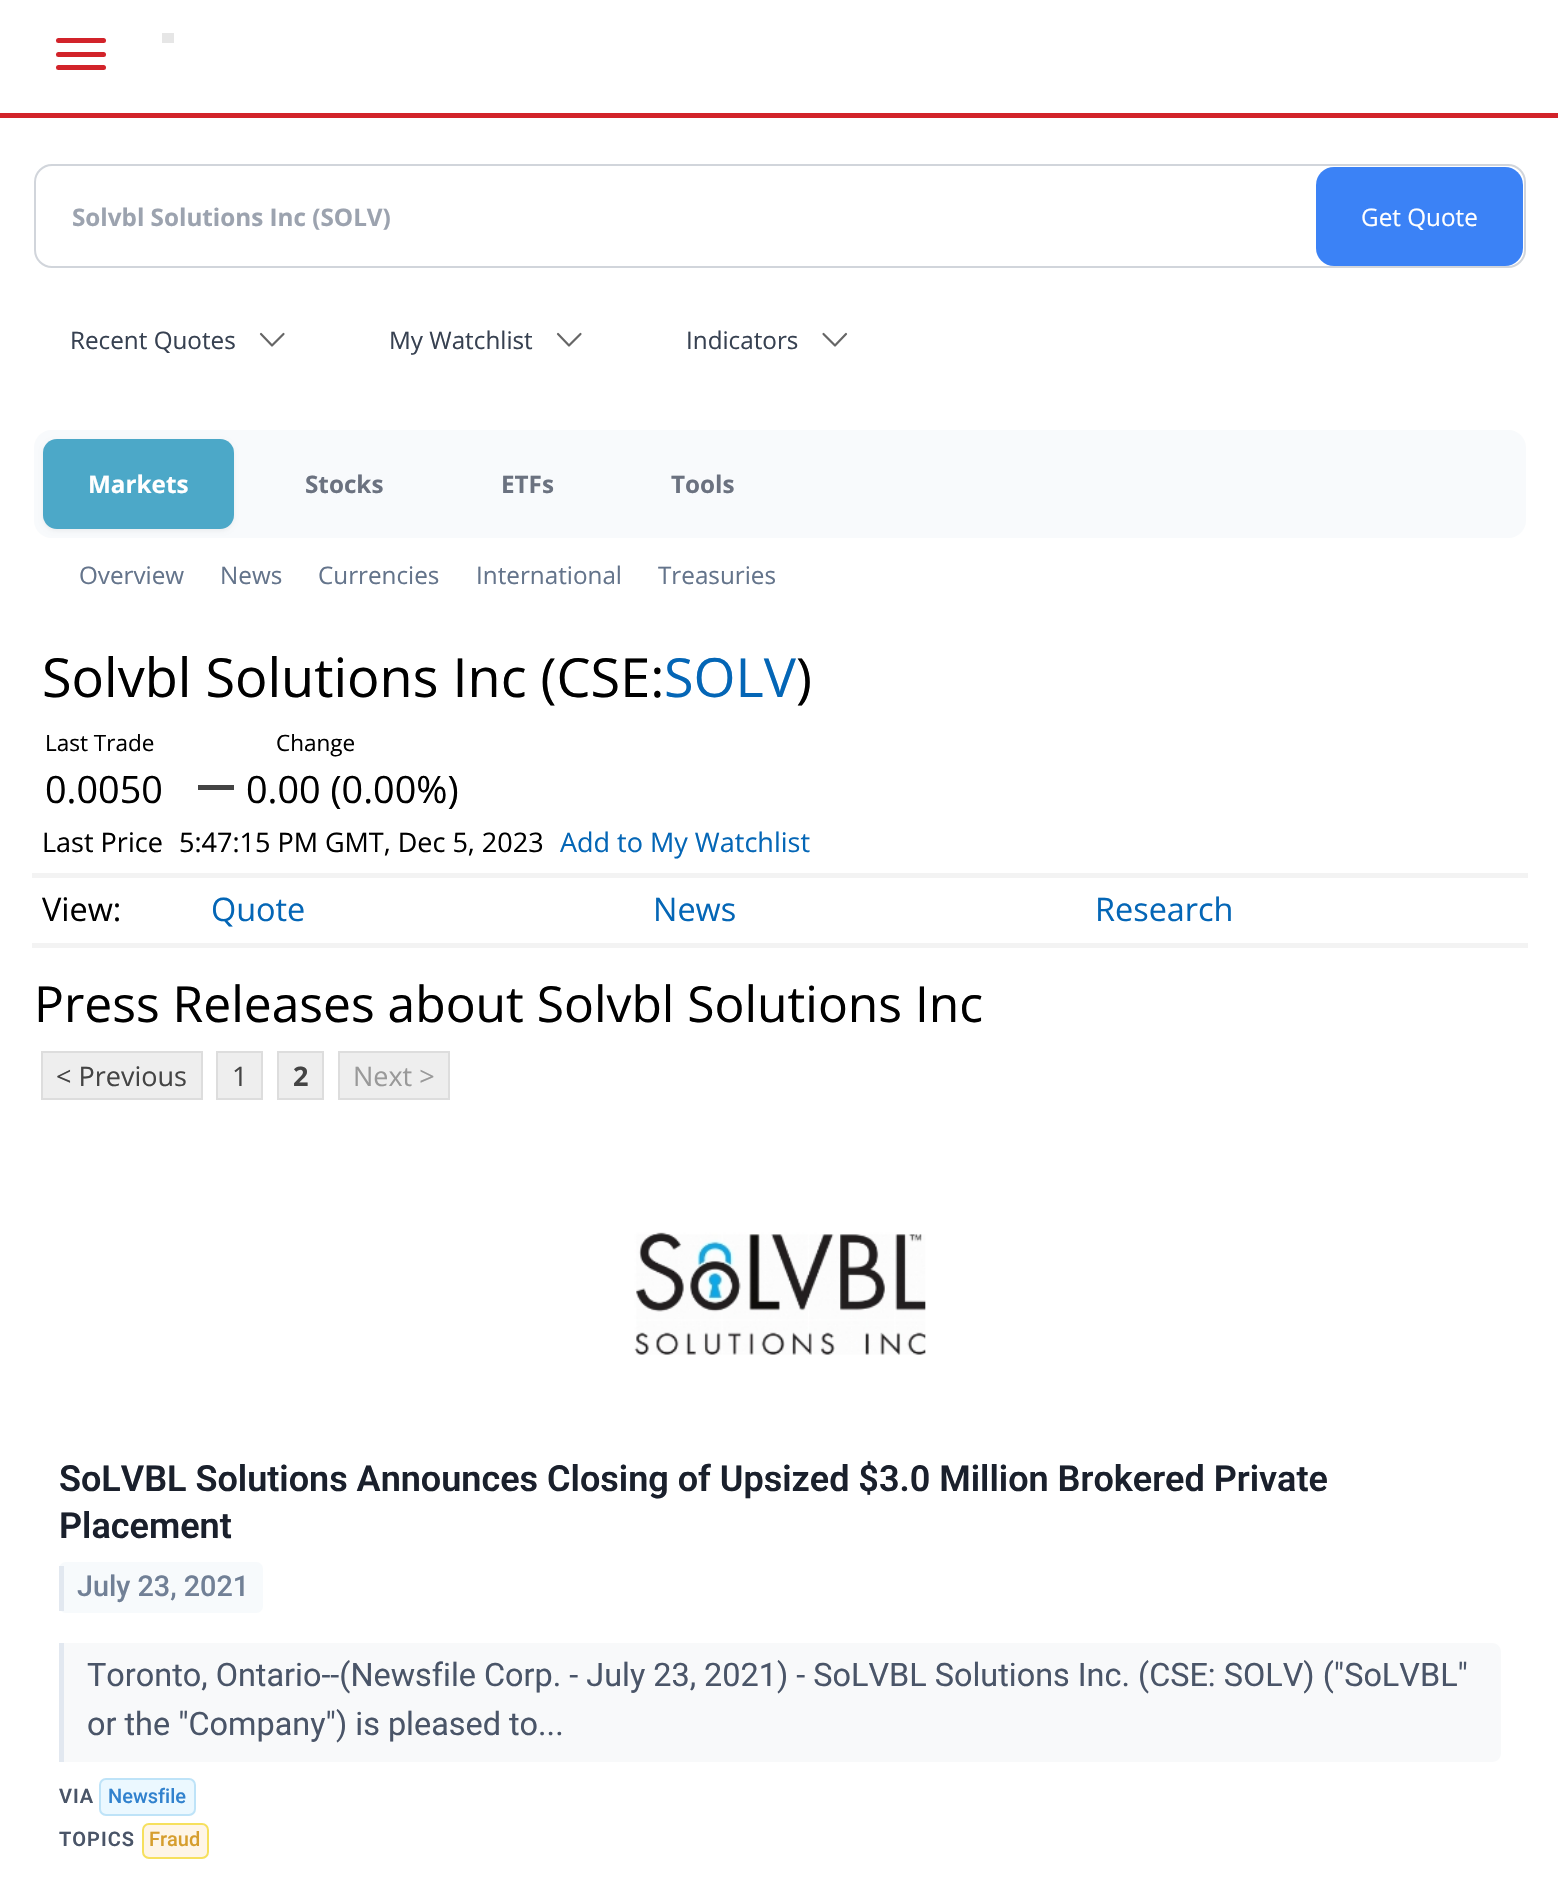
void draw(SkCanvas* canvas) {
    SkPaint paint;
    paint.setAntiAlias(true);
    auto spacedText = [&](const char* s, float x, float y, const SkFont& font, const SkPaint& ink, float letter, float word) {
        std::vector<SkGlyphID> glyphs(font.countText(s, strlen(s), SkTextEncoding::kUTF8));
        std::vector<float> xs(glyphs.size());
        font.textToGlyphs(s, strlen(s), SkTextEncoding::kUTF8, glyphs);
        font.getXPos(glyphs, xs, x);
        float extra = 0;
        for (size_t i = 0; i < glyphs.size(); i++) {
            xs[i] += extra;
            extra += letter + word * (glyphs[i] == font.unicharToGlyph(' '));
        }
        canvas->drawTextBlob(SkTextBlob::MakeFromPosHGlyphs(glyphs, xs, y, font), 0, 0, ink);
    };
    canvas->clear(0xFFFFFFFF);
    paint.setColor(0xFFD2232A);
    canvas->drawRect(SkRect::MakeXYWH(0, 113, 1558, 5), paint);
    canvas->drawRoundRect(SkRect::MakeXYWH(56, 38, 50, 5), 2.5f, 2.5f, paint);
    canvas->drawRoundRect(SkRect::MakeXYWH(56, 52, 50, 5), 2.5f, 2.5f, paint);
    canvas->drawRoundRect(SkRect::MakeXYWH(56, 65, 50, 5), 2.5f, 2.5f, paint);
    paint.setColor(0xFFE6E6E6);
    canvas->drawRect(SkRect::MakeXYWH(162, 33, 12, 10), paint);
    paint.setStyle(SkPaint::kStroke_Style);
    paint.setStrokeWidth(2);
    paint.setColor(0xFFD1D5DB);
    canvas->drawRoundRect(SkRect::MakeXYWH(35, 165, 1490, 102), 17, 17, paint);
    SkFont font1(fontMgr->matchFamilyStyle("Open Sans", SkFontStyle::Bold()), 24.25f);
    font1.setSubpixel(true);
    paint.setStyle(SkPaint::kFill_Style);
    paint.setColor(0xFF9CA3AF);
    canvas->drawString("Solvbl Solutions Inc (SOLV)", 72, 226, font1, paint);
    paint.setColor(0xFF3B82F6);
    canvas->drawRoundRect(SkRect::MakeXYWH(1316, 167, 207, 99), 18, 18, paint);
    SkFont font2(fontMgr->matchFamilyStyle("Open Sans", SkFontStyle::Normal()), 24.25f);
    font2.setSubpixel(true);
    paint.setColor(0xFFFFFFFF);
    canvas->drawString("Get Quote", 1361, 226, font2, paint);
    paint.setColor(0xFF374151);
    canvas->drawString("Recent Quotes", 70, 349, font2, paint);
    paint.setStyle(SkPaint::kStroke_Style);
    paint.setStrokeWidth(2.2f);
    paint.setStrokeCap(SkPaint::kRound_Cap);
    paint.setStrokeJoin(SkPaint::kRound_Join);
    paint.setColor(0xFF666666);
    canvas->drawPath(SkPathBuilder().moveTo(283.5f, 334).lineTo(272, 345.5f).lineTo(261, 334).detach(), paint);
    paint.setStyle(SkPaint::kFill_Style);
    paint.setColor(0xFF374151);
    canvas->drawString("My Watchlist", 389, 349, font2, paint);
    paint.setStyle(SkPaint::kStroke_Style);
    paint.setColor(0xFF666666);
    canvas->drawPath(SkPathBuilder().moveTo(580.5f, 334).lineTo(569, 345.5f).lineTo(558, 334).detach(), paint);
    paint.setStyle(SkPaint::kFill_Style);
    paint.setColor(0xFF374151);
    canvas->drawString("Indicators", 686, 349, font2, paint);
    paint.setStyle(SkPaint::kStroke_Style);
    paint.setColor(0xFF666666);
    canvas->drawPath(SkPathBuilder().moveTo(846, 334).lineTo(835, 345.5f).lineTo(823.5f, 334).detach(), paint);
    paint.setStyle(SkPaint::kFill_Style);
    paint.setColor(0xFFF8FAFC);
    canvas->drawRoundRect(SkRect::MakeXYWH(34, 430, 1492, 108), 18, 18, paint);
    paint.setColor(0x0D000000);
    paint.setMaskFilter(SkMaskFilter::MakeBlur(kNormal_SkBlurStyle, 2));
    canvas->drawRoundRect(SkRect::MakeXYWH(43, 441, 191, 90), 14, 14, paint);
    paint.setMaskFilter(nullptr);
    paint.setColor(0xFF4CA8C8);
    canvas->drawRoundRect(SkRect::MakeXYWH(43, 439, 191, 90), 14, 14, paint);
    paint.setColor(0xFFFFFFFF);
    canvas->drawString("Markets", 88, 493, font1, paint);
    paint.setColor(0xFF6B7280);
    canvas->drawString("Stocks", 305, 493, font1, paint);
    canvas->drawString("ETFs", 501, 493, font1, paint);
    canvas->drawString("Tools", 671, 493, font1, paint);
    paint.setColor(0xFF64748B);
    canvas->drawString("Overview", 79, 584, font2, paint);
    canvas->drawString("News", 220, 584, font2, paint);
    canvas->drawString("Currencies", 318, 584, font2, paint);
    canvas->drawString("International", 476, 584, font2, paint);
    canvas->drawString("Treasuries", 658, 584, font2, paint);
    SkFont font3(fontMgr->matchFamilyStyle("Open Sans", SkFontStyle::Normal()), 54);
    font3.setSubpixel(true);
    paint.setColor(0xFF000000);
    canvas->drawString("Solvbl Solutions Inc (CSE:", 42, 697, font3, paint);
    paint.setColor(0xFF0466B6);
    canvas->drawString("SOLV", 664, 697, font3, paint);
    paint.setColor(0xFF000000);
    canvas->drawString(")", 796, 697, font3, paint);
    SkFont font4(fontMgr->matchFamilyStyle("Open Sans", SkFontStyle::Normal()), 22.5f);
    font4.setSubpixel(true);
    canvas->drawString("Last Trade", 45, 751, font4, paint);
    SkFont font5(fontMgr->matchFamilyStyle("Open Sans", SkFontStyle::Normal()), 37.75f);
    font5.setSubpixel(true);
    canvas->drawString("0.0050", 45, 803, font5, paint);
    canvas->drawString("Change", 276, 751, font4, paint);
    canvas->drawString("0.00 (0.00%)", 246, 803, font5, paint);
    paint.setColor(0xFF444444);
    canvas->drawRect(SkRect::MakeXYWH(198, 785, 36, 5), paint);
    SkFont font6(fontMgr->matchFamilyStyle("Open Sans", SkFontStyle::Normal()), 27);
    font6.setSubpixel(true);
    paint.setColor(0xFF000000);
    canvas->drawString("Last Price", 42, 852, font6, paint);
    canvas->drawString("5:47:15 PM GMT, Dec 5, 2023", 179, 852, font6, paint);
    paint.setColor(0xFF0466B6);
    canvas->drawString("Add to My Watchlist", 560, 852, font6, paint);
    paint.setColor(0xFFF3F3F3);
    canvas->drawRect(SkRect::MakeXYWH(32, 873, 1496, 5), paint);
    canvas->drawRect(SkRect::MakeXYWH(32, 943, 1496, 5), paint);
    SkFont font7(fontMgr->matchFamilyStyle("Open Sans", SkFontStyle::Normal()), 32.4f);
    font7.setSubpixel(true);
    paint.setColor(0xFF000000);
    canvas->drawString("View:", 42, 921, font7, paint);
    paint.setColor(0xFF0466B6);
    canvas->drawString("Quote", 211, 921, font7, paint);
    canvas->drawString("News", 653, 921, font7, paint);
    canvas->drawString("Research", 1095, 921, font7, paint);
    SkFont font8(fontMgr->matchFamilyStyle("Open Sans", SkFontStyle::Normal()), 49.75f);
    font8.setSubpixel(true);
    paint.setColor(0xFF000000);
    canvas->drawString("Press Releases about Solvbl Solutions Inc", 34, 1022, font8, paint);
    paint.setColor(0xFFEEEEEE);
    canvas->drawRect(SkRect::MakeXYWH(42, 1052, 160, 47), paint);
    paint.setStyle(SkPaint::kStroke_Style);
    paint.setStrokeWidth(2);
    paint.setStrokeCap(SkPaint::kButt_Cap);
    paint.setStrokeJoin(SkPaint::kMiter_Join);
    paint.setColor(0xFFDDDDDD);
    canvas->drawRect(SkRect::MakeXYWH(42, 1052, 160, 47), paint);
    paint.setStyle(SkPaint::kFill_Style);
    paint.setColor(0xFF444444);
    canvas->drawString("< Previous", 56, 1086, font6, paint);
    paint.setColor(0xFFEEEEEE);
    canvas->drawRect(SkRect::MakeXYWH(217, 1052, 45, 47), paint);
    paint.setStyle(SkPaint::kStroke_Style);
    paint.setColor(0xFFDDDDDD);
    canvas->drawRect(SkRect::MakeXYWH(217, 1052, 45, 47), paint);
    paint.setStyle(SkPaint::kFill_Style);
    paint.setColor(0xFF444444);
    canvas->drawString("1", 232, 1086, font6, paint);
    paint.setColor(0xFFEEEEEE);
    canvas->drawRect(SkRect::MakeXYWH(278, 1052, 45, 47), paint);
    paint.setStyle(SkPaint::kStroke_Style);
    paint.setColor(0xFFDDDDDD);
    canvas->drawRect(SkRect::MakeXYWH(278, 1052, 45, 47), paint);
    SkFont font9(fontMgr->matchFamilyStyle("Open Sans", SkFontStyle::Bold()), 27);
    font9.setSubpixel(true);
    paint.setStyle(SkPaint::kFill_Style);
    paint.setColor(0xFF444444);
    canvas->drawString("2", 293, 1086, font9, paint);
    paint.setColor(0xFFEEEEEE);
    canvas->drawRect(SkRect::MakeXYWH(339, 1052, 110, 47), paint);
    paint.setStyle(SkPaint::kStroke_Style);
    paint.setColor(0xFFDDDDDD);
    canvas->drawRect(SkRect::MakeXYWH(339, 1052, 110, 47), paint);
    paint.setStyle(SkPaint::kFill_Style);
    paint.setColor(0xFF999999);
    canvas->drawString("Next >", 353, 1086, font6, paint);
    canvas->drawImageRect(SkImages::DeferredFromEncodedData(SkData::MakeFromFileName("img1.png")), SkRect::MakeXYWH(634, 1232, 292, 123), SkSamplingOptions());
    SkFont font10(fontMgr->matchFamilyStyle("Roboto", SkFontStyle(600, SkFontStyle::kNormal_Width, SkFontStyle::kUpright_Slant)), 36);
    font10.setSubpixel(true);
    paint.setColor(0xFF1A202C);
    canvas->drawString("SoLVBL Solutions Announces Closing of Upsized $3.0 Million Brokered Private", 59, 1491, font10, paint);
    canvas->drawString("Placement", 59, 1538, font10, paint);
    paint.setColor(0xFFF7FAFC);
    canvas->drawRoundRect(SkRect::MakeXYWH(59, 1562, 204, 51), 7, 7, paint);
    paint.setColor(0xFFE2E8F0);
    canvas->drawRect(SkRect::MakeXYWH(59, 1566, 5, 45), paint);
    SkFont font11(fontMgr->matchFamilyStyle("Roboto", SkFontStyle(500, SkFontStyle::kNormal_Width, SkFontStyle::kUpright_Slant)), 28.75f);
    font11.setSubpixel(true);
    paint.setColor(0xFF718096);
    canvas->drawString("July 23, 2021", 77, 1596, font11, paint);
    paint.setColor(0xFFF8F9FA);
    canvas->drawPath(SkPathBuilder().moveTo(59, 1643).lineTo(1492, 1643).cubicTo(1497, 1643, 1501, 1647, 1501, 1652).lineTo(1501, 1753).cubicTo(1501, 1758, 1497, 1762, 1492, 1762).lineTo(59, 1762).close().detach(), paint);
    paint.setColor(0xFFE2E8F0);
    canvas->drawRect(SkRect::MakeXYWH(59, 1643, 5, 119), paint);
    SkFont font12(fontMgr->matchFamilyStyle("Roboto", SkFontStyle::Normal()), 32.4f);
    font12.setSubpixel(true);
    paint.setColor(0xFF4A5568);
    canvas->drawString("Toronto, Ontario--(Newsfile Corp. - July 23, 2021) - SoLVBL Solutions Inc. (CSE: SOLV) (\"SoLVBL\"", 87, 1686, font12, paint);
    canvas->drawString("or the \"Company\") is pleased to...", 87, 1735, font12, paint);
    SkFont font13(fontMgr->matchFamilyStyle("Roboto", SkFontStyle(600, SkFontStyle::kNormal_Width, SkFontStyle::kUpright_Slant)), 20);
    font13.setSubpixel(true);
    spacedText("VIA", 59, 1803, font13, paint, 1, 0);
    paint.setColor(0xFFEBF8FF);
    canvas->drawRoundRect(SkRect::MakeXYWH(100, 1779, 95, 36), 6, 6, paint);
    paint.setStyle(SkPaint::kStroke_Style);
    paint.setColor(0xFFBEE3F8);
    canvas->drawRoundRect(SkRect::MakeXYWH(100, 1779, 95, 36), 6, 6, paint);
    SkFont font14(fontMgr->matchFamilyStyle("Roboto", SkFontStyle(500, SkFontStyle::kNormal_Width, SkFontStyle::kUpright_Slant)), 20);
    font14.setSubpixel(true);
    paint.setStyle(SkPaint::kFill_Style);
    paint.setColor(0xFF3182CE);
    canvas->drawString("Newsfile", 108, 1803, font14, paint);
    paint.setColor(0xFF4A5568);
    spacedText("TOPICS", 59, 1846, font13, paint, 1, 0);
    paint.setColor(0xFFFEF5E7);
    canvas->drawRoundRect(SkRect::MakeXYWH(143, 1824, 65, 34), 6, 6, paint);
    paint.setStyle(SkPaint::kStroke_Style);
    paint.setColor(0xFFF6E05E);
    canvas->drawRoundRect(SkRect::MakeXYWH(143, 1824, 65, 34), 6, 6, paint);
    paint.setStyle(SkPaint::kFill_Style);
    paint.setColor(0xFFD69E2E);
    canvas->drawString("Fraud", 149, 1846, font14, paint);
}
